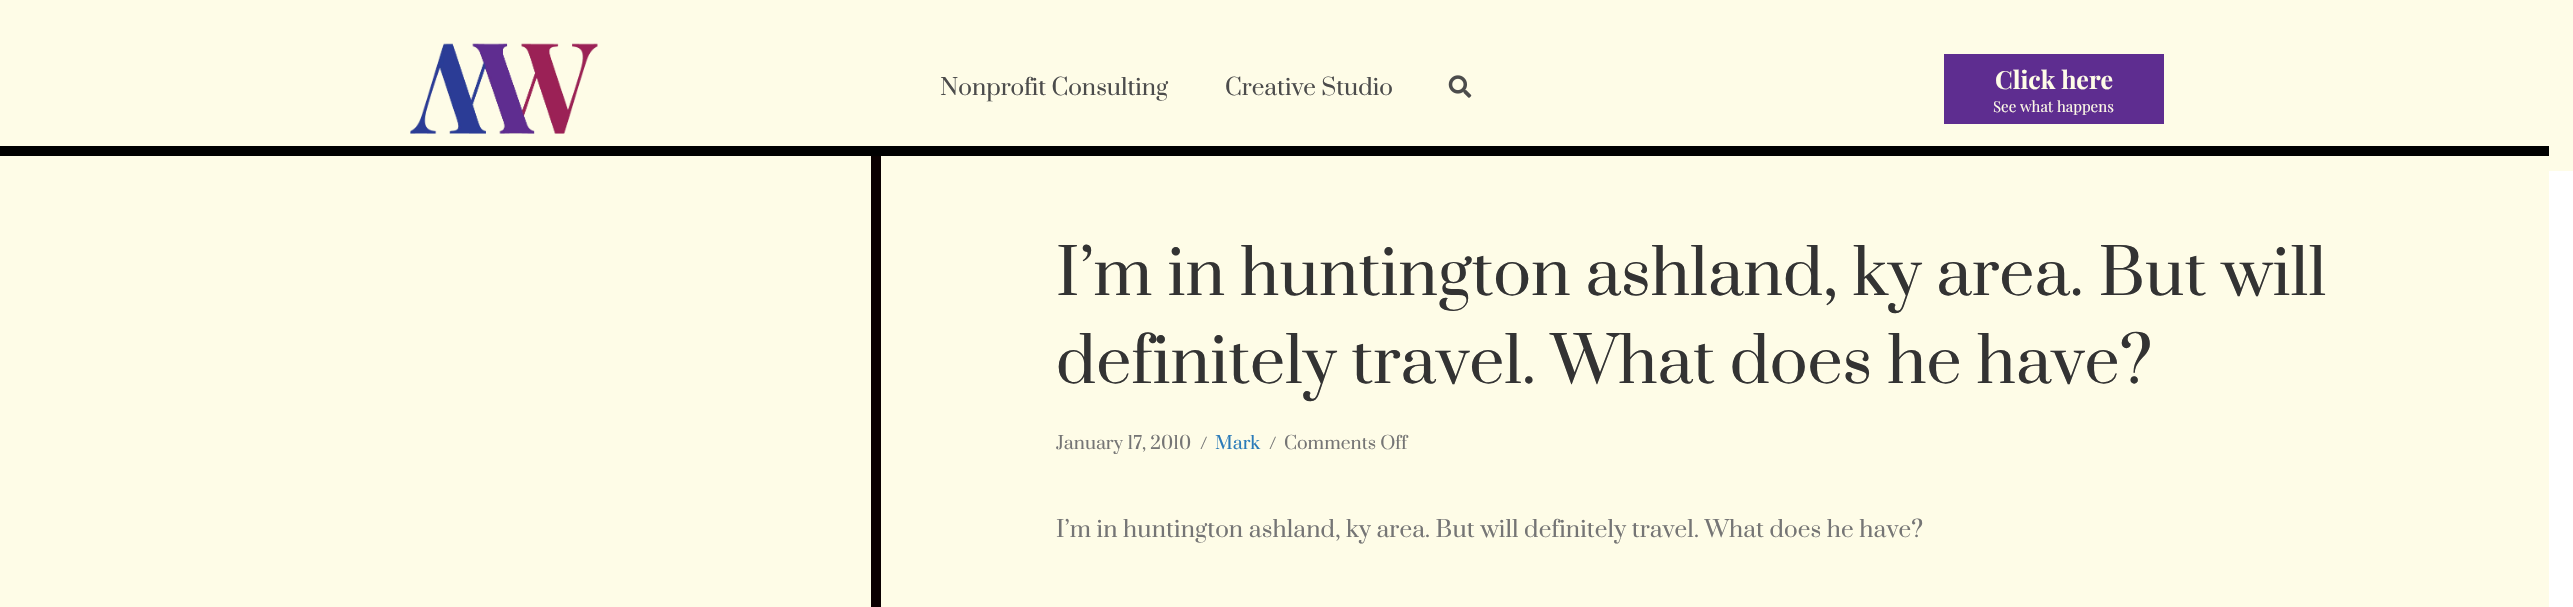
void draw(SkCanvas* canvas) {
    SkPaint paint;
    paint.setAntiAlias(true);
    auto spacedText = [&](const char* s, float x, float y, const SkFont& font, const SkPaint& ink, float letter, float word) {
        std::vector<SkGlyphID> glyphs(font.countText(s, strlen(s), SkTextEncoding::kUTF8));
        std::vector<float> xs(glyphs.size());
        font.textToGlyphs(s, strlen(s), SkTextEncoding::kUTF8, glyphs);
        font.getXPos(glyphs, xs, x);
        float extra = 0;
        for (size_t i = 0; i < glyphs.size(); i++) {
            xs[i] += extra;
            extra += letter + word * (glyphs[i] == font.unicharToGlyph(' '));
        }
        canvas->drawTextBlob(SkTextBlob::MakeFromPosHGlyphs(glyphs, xs, y, font), 0, 0, ink);
    };
    canvas->clear(0xFFFFFFFF);
    paint.setColor(0xFFFEFCE7);
    canvas->drawRect(SkRect::MakeXYWH(0, 0, 2573, 171), paint);
    canvas->drawImageRect(SkImages::DeferredFromEncodedData(SkData::MakeFromFileName("img1.png")), SkRect::MakeXYWH(410, 43, 188, 91), SkSamplingOptions());
    SkFont font1(fontMgr->matchFamilyStyle("Prata", SkFontStyle::Normal()), 22.5f);
    font1.setSubpixel(true);
    paint.setColor(0xFF4C4C4C);
    canvas->drawString("Nonprofit Consulting", 940, 95, font1, paint);
    canvas->drawString("Creative Studio", 1225, 95, font1, paint);
    canvas->drawImageRect(SkImages::DeferredFromEncodedData(SkData::MakeFromFileName("img2.png")), SkRect::MakeXYWH(1448, 75, 24, 23), SkSamplingOptions());
    paint.setColor(0xFF5E2D90);
    canvas->drawRect(SkRect::MakeXYWH(1944, 54, 220, 70), paint);
    SkFont font2(fontMgr->matchFamilyStyle("Playfair Display", SkFontStyle::Bold()), 25);
    font2.setSubpixel(true);
    paint.setColor(0xFFFEFCE7);
    canvas->drawString("Click here", 1995, 89, font2, paint);
    SkFont font3(fontMgr->matchFamilyStyle("Playfair Display", SkFontStyle::Normal()), 15);
    font3.setSubpixel(true);
    canvas->drawString("See what happens", 1993, 112, font3, paint);
    canvas->drawRect(SkRect::MakeXYWH(0, 171, 2549, 436), paint);
    paint.setColor(0xFF000000);
    canvas->drawRect(SkRect::MakeXYWH(0, 146, 2549, 10), paint);
    paint.setColor(0xFF0A0000);
    canvas->drawRect(SkRect::MakeXYWH(871, 156, 10, 451), paint);
    SkFont font4(fontMgr->matchFamilyStyle("Prata", SkFontStyle::Normal()), 62.5f);
    font4.setSubpixel(true);
    paint.setColor(0xFF333333);
    canvas->drawString("I’m in huntington ashland, ky area. But will", 1056, 295, font4, paint);
    canvas->drawString("definitely travel. What does he have?", 1056, 383, font4, paint);
    SkFont font5(fontMgr->matchFamilyStyle("Prata", SkFontStyle::Normal()), 17.5f);
    font5.setSubpixel(true);
    paint.setColor(0xFF757575);
    canvas->drawString("January 17, 2010", 1056, 449, font5, paint);
    canvas->drawString("/", 1200, 449, font5, paint);
    paint.setColor(0xFF2B7BB9);
    canvas->drawString("Mark", 1215, 449, font5, paint);
    paint.setColor(0xFF757575);
    canvas->drawString("/", 1269, 449, font5, paint);
    canvas->drawString("Comments Off", 1284, 449, font5, paint);
    spacedText("I’m in huntington ashland, ky area. But will definitely travel. What does he have?", 1056, 537, font1, paint, 0.12f, 0);
}
